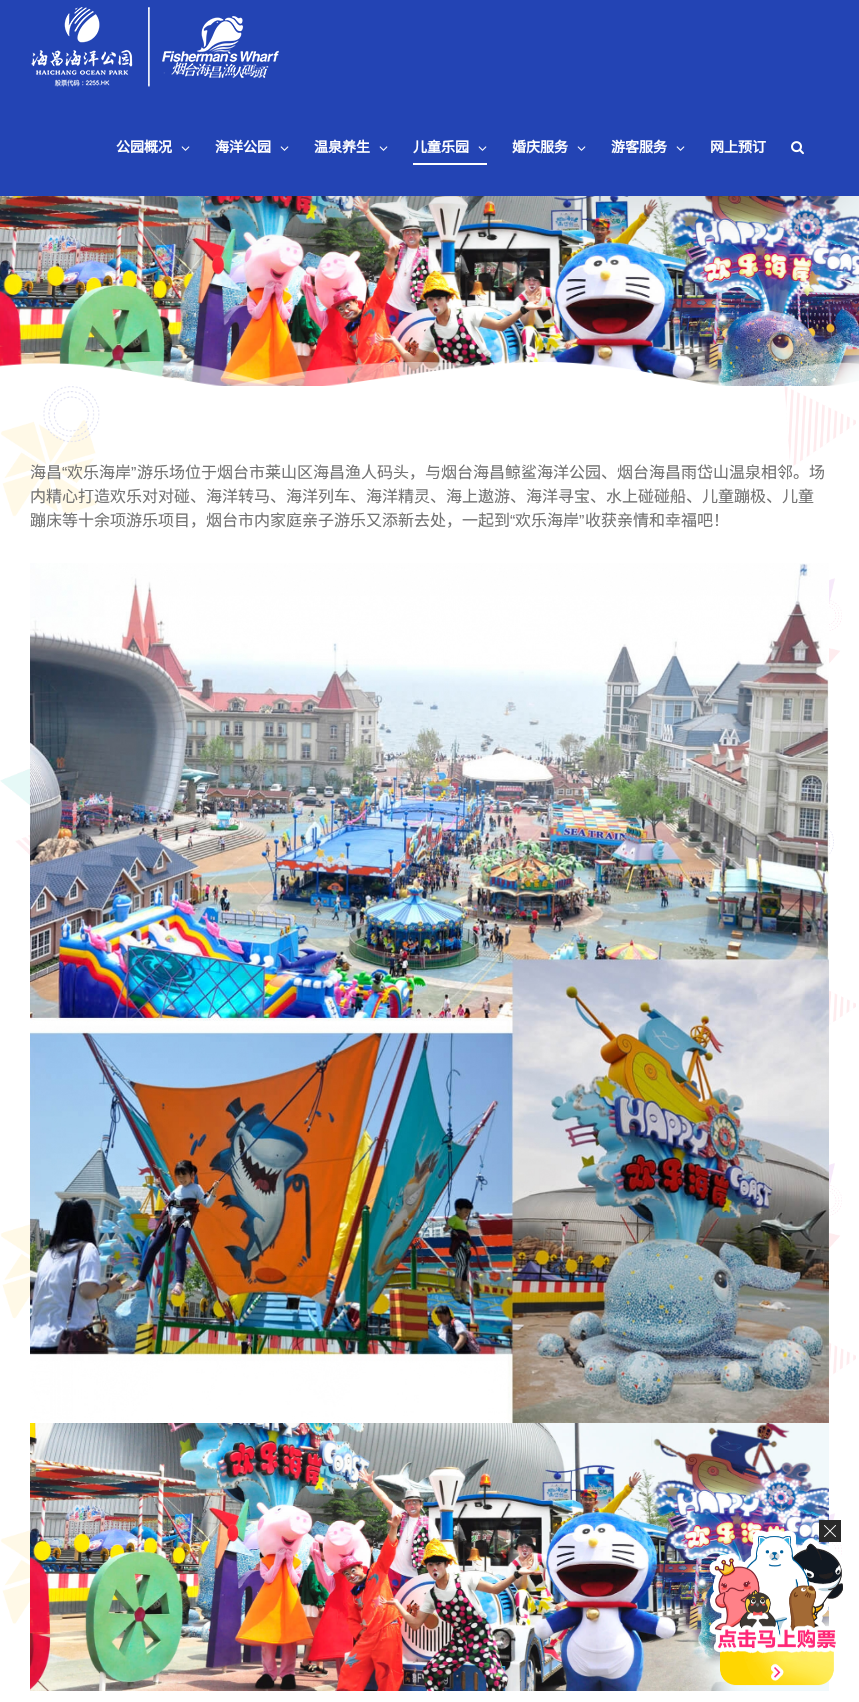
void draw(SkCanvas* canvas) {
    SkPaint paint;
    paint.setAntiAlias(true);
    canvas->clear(0xFFFFFFFF);
    canvas->drawImageRect(SkImages::DeferredFromEncodedData(SkData::MakeFromFileName("img5.png")), SkRect::MakeXYWH(0, 196, 859, 190), SkSamplingOptions());
    paint.setColor(0x24000000);
    paint.setMaskFilter(SkMaskFilter::MakeBlur(kNormal_SkBlurStyle, 25));
    canvas->drawRect(SkRect::MakeXYWH(2, 12, 855, 192), paint);
    paint.setMaskFilter(nullptr);
    paint.setColor(0xFF2344B4);
    canvas->drawRect(SkRect::MakeXYWH(0, 0, 859, 196), paint);
    canvas->drawImageRect(SkImages::DeferredFromEncodedData(SkData::MakeFromFileName("img1.png")), SkRect::MakeXYWH(31, 7, 119, 80), SkSamplingOptions());
    canvas->drawImageRect(SkImages::DeferredFromEncodedData(SkData::MakeFromFileName("img2.png")), SkRect::MakeXYWH(162, 16, 117, 62), SkSamplingOptions());
    SkFont font1(fontMgr->matchFamilyStyle("Noto Sans CJK SC", SkFontStyle::Bold()), 14);
    font1.setSubpixel(true);
    paint.setColor(0xFFFFFFFF);
    canvas->drawString("公园概况", 116, 152, font1, paint);
    canvas->drawImageRect(SkImages::DeferredFromEncodedData(SkData::MakeFromFileName("img3.png")), SkRect::MakeXYWH(181, 146, 9, 5), SkSamplingOptions());
    canvas->drawString("海洋公园", 215, 152, font1, paint);
    canvas->drawImageRect(SkImages::DeferredFromEncodedData(SkData::MakeFromFileName("img3.png")), SkRect::MakeXYWH(280, 146, 9, 5), SkSamplingOptions());
    canvas->drawString("温泉养生", 314, 152, font1, paint);
    canvas->drawImageRect(SkImages::DeferredFromEncodedData(SkData::MakeFromFileName("img3.png")), SkRect::MakeXYWH(379, 146, 9, 5), SkSamplingOptions());
    canvas->drawString("儿童乐园", 413, 152, font1, paint);
    canvas->drawImageRect(SkImages::DeferredFromEncodedData(SkData::MakeFromFileName("img3.png")), SkRect::MakeXYWH(478, 146, 9, 5), SkSamplingOptions());
    canvas->drawRect(SkRect::MakeXYWH(413, 163, 74, 2), paint);
    canvas->drawString("婚庆服务", 512, 152, font1, paint);
    canvas->drawImageRect(SkImages::DeferredFromEncodedData(SkData::MakeFromFileName("img3.png")), SkRect::MakeXYWH(577, 146, 9, 5), SkSamplingOptions());
    canvas->drawString("游客服务", 611, 152, font1, paint);
    canvas->drawImageRect(SkImages::DeferredFromEncodedData(SkData::MakeFromFileName("img3.png")), SkRect::MakeXYWH(676, 146, 9, 5), SkSamplingOptions());
    canvas->drawString("网上预订", 710, 152, font1, paint);
    canvas->drawImageRect(SkImages::DeferredFromEncodedData(SkData::MakeFromFileName("img4.png")), SkRect::MakeXYWH(791, 141, 13, 14), SkSamplingOptions());
    canvas->drawImageRect(SkImages::DeferredFromEncodedData(SkData::MakeFromFileName("img6.png")), SkRect::MakeXYWH(0, 361, 859, 25), SkSamplingOptions());
    canvas->drawImageRect(SkImages::DeferredFromEncodedData(SkData::MakeFromFileName("img7.png")), SkRect::MakeXYWH(0, 386, 856, 1238), SkSamplingOptions());
    SkFont font2(fontMgr->matchFamilyStyle("Noto Sans CJK SC", SkFontStyle::Normal()), 16);
    font2.setSubpixel(true);
    paint.setColor(0xFF747474);
    canvas->drawString("海昌", 30, 478, font2, paint);
    SkFont font3(fontMgr->matchFamilyStyle("Liberation Sans", SkFontStyle::Normal()), 16);
    font3.setSubpixel(true);
    canvas->drawString("“", 62, 478, font3, paint);
    canvas->drawString("欢乐海岸", 67, 478, font2, paint);
    canvas->drawString("”", 131, 478, font3, paint);
    canvas->drawString("游乐场位于烟台市莱山区海昌渔人码头，与烟台海昌鲸鲨海洋公园、烟台海昌雨岱山温泉相邻。场", 137, 478, font2, paint);
    canvas->drawString("内精心打造欢乐对对碰、海洋转马、海洋列车、海洋精灵、海上遨游、海洋寻宝、水上碰碰船、儿童蹦极、儿童", 30, 502, font2, paint);
    canvas->drawString("蹦床等十余项游乐项目，烟台市内家庭亲子游乐又添新去处，一起到", 30, 526, font2, paint);
    canvas->drawString("“", 510, 526, font3, paint);
    canvas->drawString("欢乐海岸", 515, 526, font2, paint);
    canvas->drawString("”", 579, 526, font3, paint);
    canvas->drawString("收获亲情和幸福吧！", 585, 526, font2, paint);
    canvas->drawImageRect(SkImages::DeferredFromEncodedData(SkData::MakeFromFileName("img8.png")), SkRect::MakeXYWH(30, 563, 799, 860), SkSamplingOptions());
    canvas->drawImageRect(SkImages::DeferredFromEncodedData(SkData::MakeFromFileName("img9.png")), SkRect::MakeXYWH(30, 1423, 799, 268), SkSamplingOptions());
    canvas->drawImageRect(SkImages::DeferredFromEncodedData(SkData::MakeFromFileName("img11.png")), SkRect::MakeXYWH(709, 1530, 134, 156), SkSamplingOptions());
    paint.setColor(0xFF292929);
    canvas->drawRect(SkRect::MakeXYWH(819, 1520, 22, 22), paint);
    canvas->drawImageRect(SkImages::DeferredFromEncodedData(SkData::MakeFromFileName("img10.png")), SkRect::MakeXYWH(824, 1525, 12, 12), SkSamplingOptions());
}
